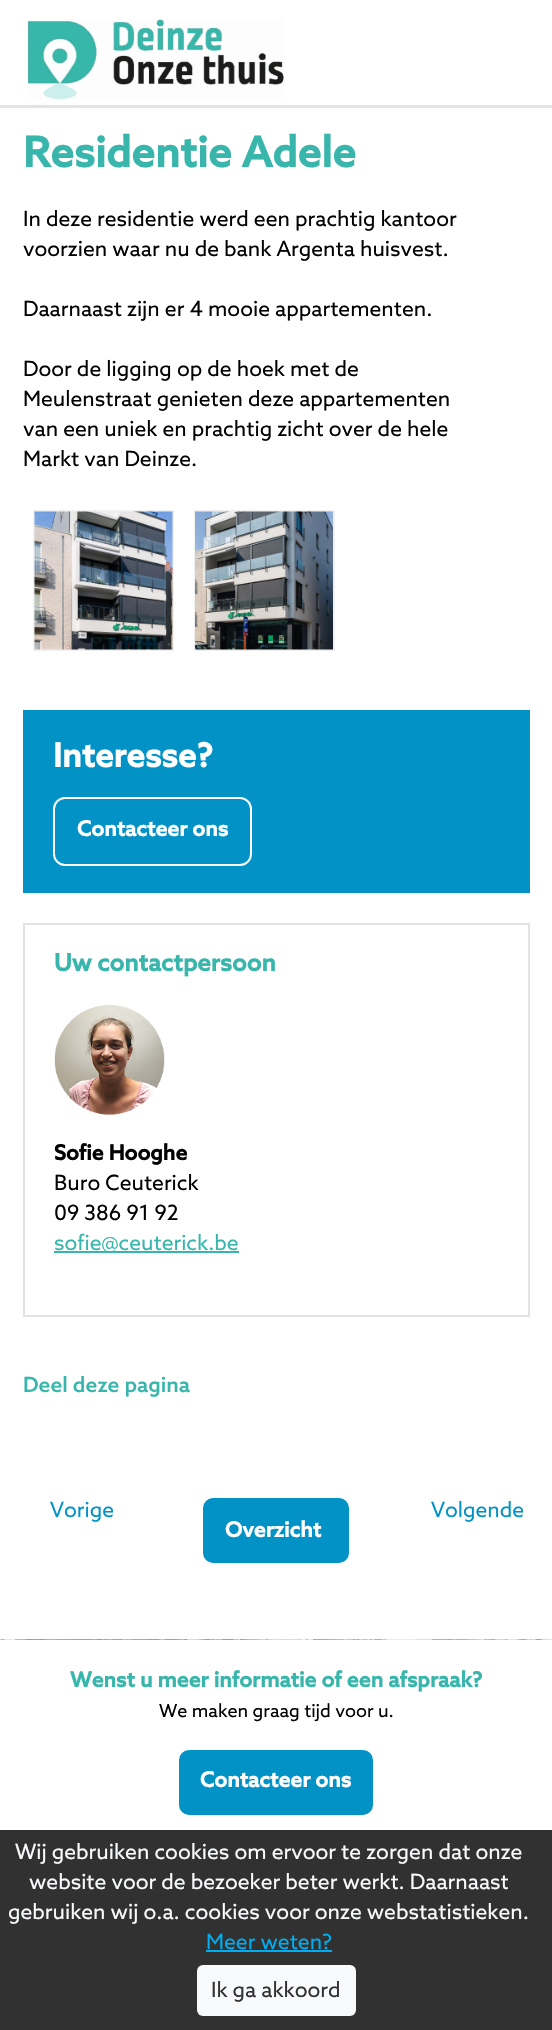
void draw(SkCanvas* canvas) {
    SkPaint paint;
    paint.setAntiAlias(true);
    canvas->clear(0xFFFFFFFF);
    paint.setColor(0xFFE3E3E3);
    canvas->drawRect(SkRect::MakeXYWH(0, 105, 552, 3), paint);
    canvas->drawImageRect(SkImages::DeferredFromEncodedData(SkData::MakeFromFileName("img1.png")), SkRect::MakeXYWH(27, 19, 258, 81), SkSamplingOptions());
    SkFont font1(fontMgr->matchFamilyStyle("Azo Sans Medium", SkFontStyle::Bold()), 42);
    font1.setSubpixel(true);
    paint.setColor(0xFF38B6AB);
    canvas->drawString("Residentie Adele", 23, 167, font1, paint);
    SkFont font2(fontMgr->matchFamilyStyle("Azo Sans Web", SkFontStyle::Normal()), 21);
    font2.setSubpixel(true);
    paint.setColor(0xFF020202);
    canvas->drawString("In deze residentie werd een prachtig kantoor", 23, 226, font2, paint);
    canvas->drawString("voorzien waar nu de bank Argenta huisvest.", 23, 256, font2, paint);
    canvas->drawString("Daarnaast zijn er 4 mooie appartementen.", 23, 316, font2, paint);
    canvas->drawString("Door de ligging op de hoek met de", 23, 376, font2, paint);
    canvas->drawString("Meulenstraat genieten deze appartementen", 23, 406, font2, paint);
    canvas->drawString("van een uniek en prachtig zicht over de hele", 23, 436, font2, paint);
    canvas->drawString("Markt van Deinze.", 23, 466, font2, paint);
    paint.setStyle(SkPaint::kStroke_Style);
    paint.setStrokeWidth(2);
    paint.setColor(0xFFF1F1F1);
    canvas->drawRect(SkRect::MakeXYWH(34, 511, 139, 139), paint);
    canvas->drawImageRect(SkImages::DeferredFromEncodedData(SkData::MakeFromFileName("img2.png")), SkRect::MakeXYWH(34, 511, 139, 139), SkSamplingOptions());
    canvas->drawRect(SkRect::MakeXYWH(195, 511, 139, 139), paint);
    canvas->drawImageRect(SkImages::DeferredFromEncodedData(SkData::MakeFromFileName("img3.png")), SkRect::MakeXYWH(195, 511, 138, 139), SkSamplingOptions());
    paint.setStyle(SkPaint::kFill_Style);
    paint.setColor(0xFF0292C6);
    canvas->drawRect(SkRect::MakeXYWH(23, 710, 507, 183), paint);
    SkFont font3(fontMgr->matchFamilyStyle("Azo Sans Medium", SkFontStyle::Bold()), 33);
    font3.setSubpixel(true);
    paint.setColor(0xFFFFFFFF);
    canvas->drawString("Interesse?", 53, 767, font3, paint);
    paint.setStyle(SkPaint::kStroke_Style);
    canvas->drawRoundRect(SkRect::MakeXYWH(54, 798, 197, 67), 11, 11, paint);
    SkFont font4(fontMgr->matchFamilyStyle("Azo Sans Medium", SkFontStyle::Bold()), 21);
    font4.setSubpixel(true);
    paint.setStyle(SkPaint::kFill_Style);
    canvas->drawString("Contacteer ons", 77, 836, font4, paint);
    paint.setStyle(SkPaint::kStroke_Style);
    paint.setColor(0xFFE3E3E3);
    canvas->drawRect(SkRect::MakeXYWH(24, 924, 505, 392), paint);
    SkFont font5(fontMgr->matchFamilyStyle("Azo Sans Medium", SkFontStyle::Bold()), 24);
    font5.setSubpixel(true);
    paint.setStyle(SkPaint::kFill_Style);
    paint.setColor(0xFF38B6AB);
    canvas->drawString("Uw contactpersoon", 54, 971, font5, paint);
    canvas->drawImageRect(SkImages::DeferredFromEncodedData(SkData::MakeFromFileName("img4.png")), SkRect::MakeXYWH(54, 1005, 111, 110), SkSamplingOptions());
    paint.setColor(0xFF020202);
    canvas->drawString("Sofie Hooghe", 54, 1160, font4, paint);
    canvas->drawString("Buro Ceuterick", 54, 1190, font2, paint);
    canvas->drawString("09 386 91 92", 54, 1220, font2, paint);
    paint.setColor(0xFF38B6AB);
    canvas->drawRect(SkRect::MakeXYWH(54, 1251, 185, 2), paint);
    canvas->drawString("sofie@ceuterick.be", 54, 1250, font2, paint);
    SkFont font6(fontMgr->matchFamilyStyle("Azo Sans Medium", SkFontStyle(500, SkFontStyle::kNormal_Width, SkFontStyle::kUpright_Slant)), 21);
    font6.setSubpixel(true);
    canvas->drawString("Deel deze pagina", 23, 1392, font6, paint);
    paint.setColor(0xFF0292C6);
    canvas->drawString("Vorige", 50, 1517, font2, paint);
    canvas->drawString("Volgende", 431, 1517, font2, paint);
    canvas->drawRoundRect(SkRect::MakeXYWH(202, 1497, 148, 67), 11, 11, paint);
    paint.setStyle(SkPaint::kStroke_Style);
    paint.setColor(0xFFFFFFFF);
    canvas->drawRoundRect(SkRect::MakeXYWH(202, 1497, 148, 67), 11, 11, paint);
    paint.setStyle(SkPaint::kFill_Style);
    canvas->drawString("Overzicht", 225, 1537, font4, paint);
    canvas->drawImageRect(SkImages::DeferredFromEncodedData(SkData::MakeFromFileName("img5.png")), SkRect::MakeXYWH(0, 1639, 552, 1), SkSamplingOptions());
    paint.setColor(0xFF38B6AB);
    canvas->drawString("Wenst u meer informatie of een afspraak?", 70, 1687, font4, paint);
    SkFont font7(fontMgr->matchFamilyStyle("Azo Sans Web", SkFontStyle::Normal()), 18);
    font7.setSubpixel(true);
    paint.setColor(0xFF020202);
    canvas->drawString("We maken graag tijd voor u.", 159, 1717, font7, paint);
    paint.setColor(0xFF0292C6);
    canvas->drawRoundRect(SkRect::MakeXYWH(178, 1749, 196, 67), 11, 11, paint);
    paint.setStyle(SkPaint::kStroke_Style);
    paint.setColor(0xFFFFFFFF);
    canvas->drawRoundRect(SkRect::MakeXYWH(178, 1749, 196, 67), 11, 11, paint);
    paint.setStyle(SkPaint::kFill_Style);
    canvas->drawString("Contacteer ons", 200, 1787, font4, paint);
    paint.setColor(0xFF313131);
    canvas->drawRect(SkRect::MakeXYWH(0, 1830, 552, 200), paint);
    paint.setColor(0xFFF9FAFC);
    canvas->drawString("Wij gebruiken cookies om ervoor te zorgen dat onze", 15, 1859, font2, paint);
    canvas->drawString("website voor de bezoeker beter werkt. Daarnaast", 29, 1889, font2, paint);
    canvas->drawString("gebruiken wij o.a. cookies voor onze webstatistieken.", 8, 1919, font2, paint);
    paint.setColor(0xFF00AEEF);
    canvas->drawString("Meer weten?", 206, 1949, font2, paint);
    canvas->drawRect(SkRect::MakeXYWH(206, 1950, 126, 2), paint);
    paint.setColor(0xFFF9FAFC);
    canvas->drawRoundRect(SkRect::MakeXYWH(197, 1965, 159, 51), 6, 6, paint);
    paint.setColor(0xFF313131);
    canvas->drawString("Ik ga akkoord", 211, 1997, font2, paint);
}
